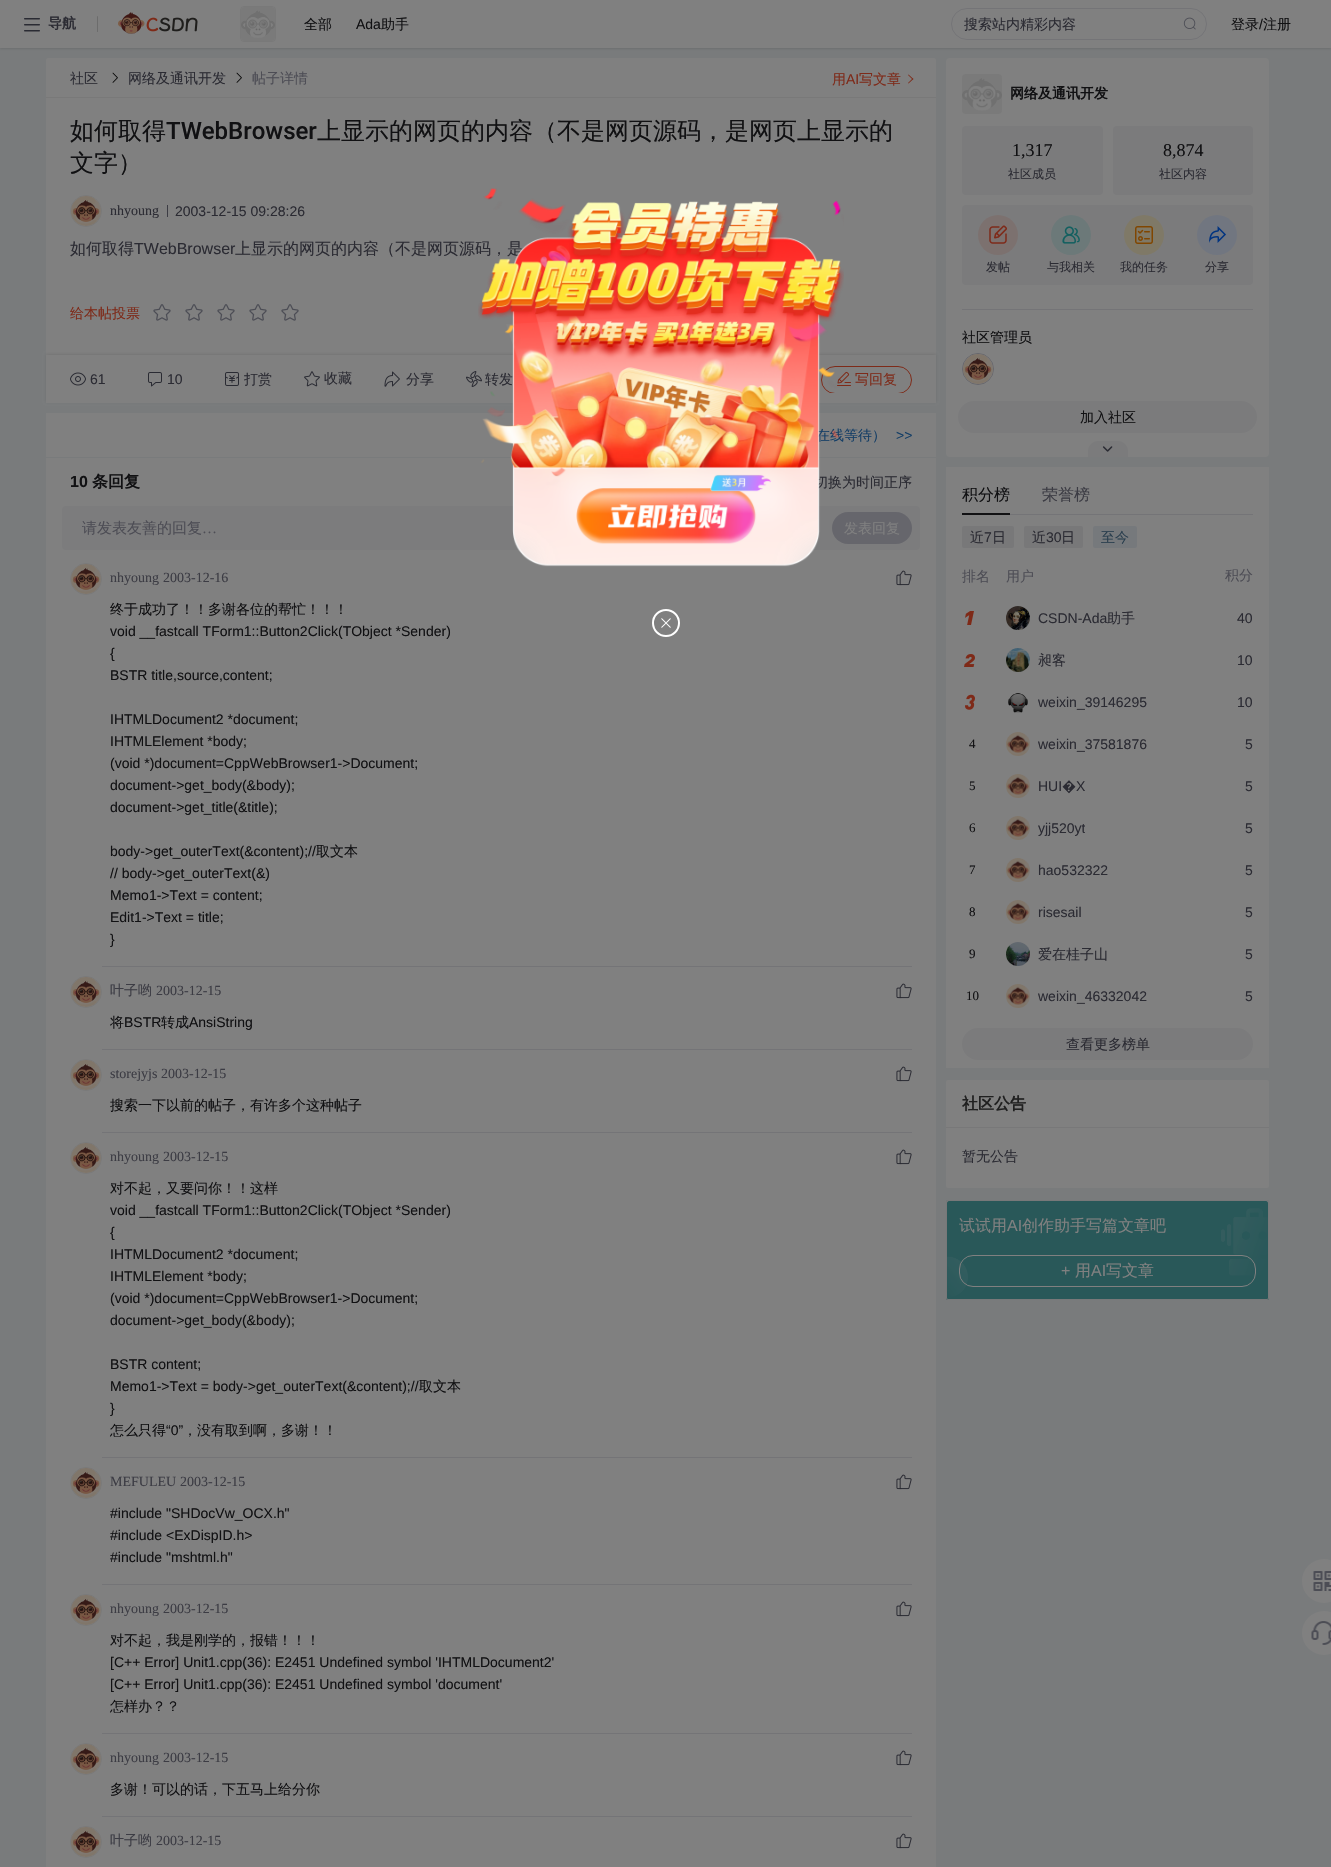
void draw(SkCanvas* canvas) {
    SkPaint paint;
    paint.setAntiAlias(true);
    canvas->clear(0xFF797B7C);
    paint.setColor(0x1A000000);
    paint.setMaskFilter(SkMaskFilter::MakeBlur(kNormal_SkBlurStyle, 1));
    canvas->drawRect(SkRect::MakeXYWH(0, 1, 1331, 48), paint);
    paint.setMaskFilter(nullptr);
    paint.setColor(0xFF808080);
    canvas->drawRect(SkRect::MakeXYWH(0, 0, 1331, 48), paint);
    canvas->drawImageRect(SkImages::DeferredFromEncodedData(SkData::MakeFromFileName("img1.png")), SkRect::MakeXYWH(24, 18, 16, 14), SkSamplingOptions());
    SkFont font1(fontMgr->matchFamilyStyle("WenQuanYi Zen Hei", SkFontStyle::Bold()), 14);
    font1.setSubpixel(true);
    paint.setColor(0xFF2B2B33);
    canvas->drawString("导航", 48, 28, font1, paint);
    paint.setColor(0xFF6C6C6C);
    canvas->drawRoundRect(SkRect::MakeXYWH(97, 16, 1, 16), 0.5f, 0.5f, paint);
    canvas->drawImageRect(SkImages::DeferredFromEncodedData(SkData::MakeFromFileName("img2.png")), SkRect::MakeXYWH(118, 12, 80, 22), SkSamplingOptions());
    paint.setStyle(SkPaint::kStroke_Style);
    paint.setStrokeWidth(1);
    paint.setColor(0xFF797979);
    canvas->drawRoundRect(SkRect::MakeXYWH(240.5f, 6.5f, 35, 35), 3.5f, 3.5f, paint);
    canvas->drawImageRect(SkImages::DeferredFromEncodedData(SkData::MakeFromFileName("img3.png")), SkRect::MakeXYWH(241, 7, 34, 34), SkSamplingOptions());
    SkFont font2(fontMgr->matchFamilyStyle("WenQuanYi Zen Hei", SkFontStyle(500, SkFontStyle::kNormal_Width, SkFontStyle::kUpright_Slant)), 14);
    font2.setSubpixel(true);
    paint.setStyle(SkPaint::kFill_Style);
    paint.setColor(0xFF111113);
    canvas->drawString("全部", 304, 29, font2, paint);
    SkFont font3(fontMgr->matchFamilyStyle("Liberation Sans", SkFontStyle::Normal()), 14);
    font3.setSubpixel(true);
    canvas->drawString("Ada", 356, 29, font3, paint);
    canvas->drawString("助手", 381, 29, font2, paint);
    paint.setStyle(SkPaint::kStroke_Style);
    paint.setColor(0xFF747477);
    canvas->drawRoundRect(SkRect::MakeXYWH(951.5f, 8.5f, 255, 31), 15.5f, 15.5f, paint);
    paint.setStyle(SkPaint::kFill_Style);
    paint.setColor(0xFF2B2B33);
    canvas->drawString("搜索站内精彩内容", 964, 29, font2, paint);
    canvas->drawImageRect(SkImages::DeferredFromEncodedData(SkData::MakeFromFileName("img4.png")), SkRect::MakeXYWH(1183, 17, 13, 13), SkSamplingOptions());
    paint.setColor(0xFF111113);
    canvas->drawString("登录", 1231, 29, font2, paint);
    canvas->drawString("/", 1259, 29, font3, paint);
    canvas->drawString("注册", 1263, 29, font2, paint);
    paint.setColor(0xFF808080);
    canvas->drawPath(SkPathBuilder().moveTo(48, 58).lineTo(934, 58).cubicTo(935, 58, 936, 59, 936, 60).lineTo(936, 98).lineTo(46, 98).lineTo(46, 60).cubicTo(46, 59, 47, 58, 48, 58).close().detach(), paint);
    paint.setColor(0xFF797979);
    canvas->drawRect(SkRect::MakeXYWH(46, 97, 890, 1), paint);
    paint.setColor(0xFF2B2B33);
    canvas->drawString("社区", 70, 83, font2, paint);
    canvas->drawImageRect(SkImages::DeferredFromEncodedData(SkData::MakeFromFileName("img5.png")), SkRect::MakeXYWH(112, 72, 6, 11), SkSamplingOptions());
    canvas->drawString("网络及通讯开发", 128, 83, font2, paint);
    canvas->drawImageRect(SkImages::DeferredFromEncodedData(SkData::MakeFromFileName("img5.png")), SkRect::MakeXYWH(236, 72, 6, 11), SkSamplingOptions());
    paint.setColor(0xFF4D4D55);
    canvas->drawString("帖子详情", 252, 83, font2, paint);
    paint.setColor(0xFF7E2B1A);
    canvas->drawString("用", 832, 84, font2, paint);
    canvas->drawString("AI", 846, 84, font3, paint);
    canvas->drawString("写文章", 859, 84, font2, paint);
    paint.setColor(0xFF7E2B19);
    canvas->drawPath(SkPathBuilder().moveTo(908, 75).lineTo(908.5f, 74.5f).lineTo(913.5f, 79).lineTo(912.5f, 79.5f).close().detach(), paint);
    canvas->drawPath(SkPathBuilder().moveTo(908, 83).lineTo(912.5f, 78.5f).lineTo(913.5f, 79).lineTo(908.5f, 83.5f).close().detach(), paint);
    paint.setColor(0xFF808080);
    canvas->drawRect(SkRect::MakeXYWH(46, 98, 890, 257), paint);
    SkFont font4(fontMgr->matchFamilyStyle("WenQuanYi Zen Hei", SkFontStyle(500, SkFontStyle::kNormal_Width, SkFontStyle::kUpright_Slant)), 24);
    font4.setSubpixel(true);
    paint.setColor(0xFF111113);
    canvas->drawString("如何取得", 70, 139, font4, paint);
    SkFont font5(fontMgr->matchFamilyStyle("Roboto", SkFontStyle(500, SkFontStyle::kNormal_Width, SkFontStyle::kUpright_Slant)), 24);
    font5.setSubpixel(true);
    canvas->drawString("TWebBrowser", 166, 139, font5, paint);
    canvas->drawString("上显示的网页的内容（不是网页源码，是网页上显示的", 317, 139, font4, paint);
    canvas->drawString("文字）", 70, 171, font4, paint);
    paint.setStyle(SkPaint::kStroke_Style);
    paint.setColor(0xFF797979);
    canvas->drawCircle(86, 211, 15.5f, paint);
    canvas->drawImageRect(SkImages::DeferredFromEncodedData(SkData::MakeFromFileName("img6.png")), SkRect::MakeXYWH(71, 196, 30, 30), SkSamplingOptions());
    SkFont font6(fontMgr->matchFamilyStyle("Liberation Serif", SkFontStyle::Normal()), 14);
    font6.setSubpixel(true);
    paint.setStyle(SkPaint::kFill_Style);
    paint.setColor(0xFF2B2B33);
    canvas->drawString("nhyoung", 110, 215, font6, paint);
    paint.setColor(0xFF3C3C44);
    canvas->drawRect(SkRect::MakeXYWH(167, 205, 1, 12), paint);
    paint.setColor(0xFF2B2B33);
    canvas->drawString("2003-12-15 09:28:26", 175, 216, font3, paint);
    SkFont font7(fontMgr->matchFamilyStyle("WenQuanYi Zen Hei", SkFontStyle(500, SkFontStyle::kNormal_Width, SkFontStyle::kUpright_Slant)), 16);
    font7.setSubpixel(true);
    canvas->drawString("如何取得", 70, 254, font7, paint);
    SkFont font8(fontMgr->matchFamilyStyle("Liberation Sans", SkFontStyle::Normal()), 16);
    font8.setSubpixel(true);
    canvas->drawString("TWebBrowser", 134, 254, font8, paint);
    canvas->drawString("上显示的网页的内容（不是网页源码，是", 235, 254, font7, paint);
    paint.setColor(0xFF7E2B1A);
    canvas->drawString("给本帖投票", 70, 318, font2, paint);
    canvas->drawImageRect(SkImages::DeferredFromEncodedData(SkData::MakeFromFileName("img7.png")), SkRect::MakeXYWH(153, 304, 18, 17), SkSamplingOptions());
    canvas->drawImageRect(SkImages::DeferredFromEncodedData(SkData::MakeFromFileName("img7.png")), SkRect::MakeXYWH(185, 304, 18, 17), SkSamplingOptions());
    canvas->drawImageRect(SkImages::DeferredFromEncodedData(SkData::MakeFromFileName("img7.png")), SkRect::MakeXYWH(217, 304, 18, 17), SkSamplingOptions());
    canvas->drawImageRect(SkImages::DeferredFromEncodedData(SkData::MakeFromFileName("img7.png")), SkRect::MakeXYWH(249, 304, 18, 17), SkSamplingOptions());
    canvas->drawImageRect(SkImages::DeferredFromEncodedData(SkData::MakeFromFileName("img7.png")), SkRect::MakeXYWH(281, 304, 18, 17), SkSamplingOptions());
    paint.setColor(0x1A090909);
    paint.setMaskFilter(SkMaskFilter::MakeBlur(kNormal_SkBlurStyle, 1.5f));
    canvas->drawRect(SkRect::MakeXYWH(46, 354, 890, 48), paint);
    paint.setMaskFilter(nullptr);
    paint.setColor(0xFF808080);
    canvas->drawRect(SkRect::MakeXYWH(46, 355, 890, 48), paint);
    canvas->drawImageRect(SkImages::DeferredFromEncodedData(SkData::MakeFromFileName("img8.png")), SkRect::MakeXYWH(70, 372, 16, 14), SkSamplingOptions());
    paint.setColor(0xFF2B2B33);
    canvas->drawString("61", 90, 384, font3, paint);
    canvas->drawImageRect(SkImages::DeferredFromEncodedData(SkData::MakeFromFileName("img9.png")), SkRect::MakeXYWH(148, 372, 14, 15), SkSamplingOptions());
    canvas->drawString("10", 167, 384, font3, paint);
    canvas->drawImageRect(SkImages::DeferredFromEncodedData(SkData::MakeFromFileName("img10.png")), SkRect::MakeXYWH(225, 372, 14, 14), SkSamplingOptions());
    canvas->drawString("打赏", 244, 384, font2, paint);
    canvas->drawImageRect(SkImages::DeferredFromEncodedData(SkData::MakeFromFileName("img11.png")), SkRect::MakeXYWH(304, 371, 16, 16), SkSamplingOptions());
    canvas->drawString("收藏", 324, 383, font2, paint);
    canvas->drawImageRect(SkImages::DeferredFromEncodedData(SkData::MakeFromFileName("img12.png")), SkRect::MakeXYWH(384, 371, 16, 16), SkSamplingOptions());
    canvas->drawString("分享", 406, 384, font2, paint);
    canvas->drawImageRect(SkImages::DeferredFromEncodedData(SkData::MakeFromFileName("img13.png")), SkRect::MakeXYWH(466, 371, 16, 16), SkSamplingOptions());
    canvas->drawString("转发", 485, 384, font2, paint);
    canvas->save();
    canvas->clipRect(SkRect::MakeXYWH(46, 365, 890, 28));
    paint.setStyle(SkPaint::kStroke_Style);
    paint.setColor(0xFF7E2B19);
    canvas->drawRoundRect(SkRect::MakeXYWH(821.5f, 366.5f, 90, 27), 13.5f, 13.5f, paint);
    canvas->restore();
    canvas->drawImageRect(SkImages::DeferredFromEncodedData(SkData::MakeFromFileName("img14.png")), SkRect::MakeXYWH(837, 371, 14, 15), SkSamplingOptions());
    paint.setStyle(SkPaint::kFill_Style);
    paint.setColor(0xFF7E2B1A);
    canvas->drawString("写回复", 855, 384, font2, paint);
    paint.setColor(0xFF808080);
    canvas->drawRect(SkRect::MakeXYWH(46, 413, 890, 44), paint);
    paint.setColor(0xFF143E66);
    canvas->drawString("在线等待）", 816, 440, font2, paint);
    canvas->drawString(">>", 896, 440, font3, paint);
    paint.setColor(0xFF808080);
    canvas->drawRect(SkRect::MakeXYWH(46, 458, 890, 1409), paint);
    SkFont font9(fontMgr->matchFamilyStyle("Liberation Sans", SkFontStyle::Bold()), 16);
    font9.setSubpixel(true);
    paint.setColor(0xFF111113);
    canvas->drawString("10", 70, 487, font9, paint);
    SkFont font10(fontMgr->matchFamilyStyle("WenQuanYi Zen Hei", SkFontStyle::Bold()), 16);
    font10.setSubpixel(true);
    canvas->drawString("条回复", 92, 487, font10, paint);
    paint.setColor(0xFF2B2B33);
    canvas->drawString("切换为时间正序", 814, 487, font2, paint);
    paint.setColor(0xFF7C7C7D);
    canvas->drawRoundRect(SkRect::MakeXYWH(62, 506, 858, 44), 4, 4, paint);
    SkFont font11(fontMgr->matchFamilyStyle("WenQuanYi Zen Hei", SkFontStyle(500, SkFontStyle::kNormal_Width, SkFontStyle::kUpright_Slant)), 15);
    font11.setSubpixel(true);
    paint.setColor(0xFF4D4D55);
    canvas->drawString("请发表友善的回复", 82, 533, font11, paint);
    SkFont font12(fontMgr->matchFamilyStyle("Liberation Serif", SkFontStyle::Normal()), 15);
    font12.setSubpixel(true);
    canvas->drawString("…", 202, 533, font12, paint);
    paint.setColor(0xFF66666C);
    canvas->drawRoundRect(SkRect::MakeXYWH(832, 512, 80, 32), 16, 16, paint);
    paint.setColor(0xFF808080);
    canvas->drawString("发表回复", 844, 533, font2, paint);
    paint.setStyle(SkPaint::kStroke_Style);
    paint.setColor(0xFF797979);
    canvas->drawCircle(86, 579, 15.5f, paint);
    canvas->drawImageRect(SkImages::DeferredFromEncodedData(SkData::MakeFromFileName("img6.png")), SkRect::MakeXYWH(71, 564, 30, 30), SkSamplingOptions());
    paint.setStyle(SkPaint::kFill_Style);
    paint.setColor(0xFF3C3C44);
    canvas->drawString("nhyoung", 110, 582, font6, paint);
    canvas->drawString("2003-12-16", 163, 582, font6, paint);
    canvas->drawImageRect(SkImages::DeferredFromEncodedData(SkData::MakeFromFileName("img15.png")), SkRect::MakeXYWH(896, 570, 16, 16), SkSamplingOptions());
    paint.setColor(0xFF111113);
    canvas->drawString("终于成功了！！多谢各位的帮忙！！！", 110, 614, font2, paint);
    canvas->drawString("void __fastcall TForm1::Button2Click(TObject *Sender)", 110, 636, font3, paint);
    canvas->drawString("{", 110, 658, font3, paint);
    canvas->drawString("BSTR title,source,content;", 110, 680, font3, paint);
    canvas->drawString("IHTMLDocument2 *document;", 110, 724, font3, paint);
    canvas->drawString("IHTMLElement *body;", 110, 746, font3, paint);
    canvas->drawString("(void *)document=CppWebBrowser1->Document;", 110, 768, font3, paint);
    canvas->drawString("document->get_body(&body);", 110, 790, font3, paint);
    canvas->drawString("document->get_title(&title);", 110, 812, font3, paint);
    canvas->drawString("body->get_outerText(&content);//", 110, 856, font3, paint);
    canvas->drawString("取文本", 316, 856, font2, paint);
    canvas->drawString("// body->get_outerText(&)", 110, 878, font3, paint);
    canvas->drawString("Memo1->Text = content;", 110, 900, font3, paint);
    canvas->drawString("Edit1->Text = title;", 110, 922, font3, paint);
    canvas->drawString("}", 110, 944, font3, paint);
    paint.setColor(0xFF747477);
    canvas->drawRect(SkRect::MakeXYWH(102, 966, 810, 1), paint);
    paint.setStyle(SkPaint::kStroke_Style);
    paint.setColor(0xFF797979);
    canvas->drawCircle(86, 992, 15.5f, paint);
    canvas->drawImageRect(SkImages::DeferredFromEncodedData(SkData::MakeFromFileName("img6.png")), SkRect::MakeXYWH(71, 977, 30, 30), SkSamplingOptions());
    paint.setStyle(SkPaint::kFill_Style);
    paint.setColor(0xFF3C3C44);
    canvas->drawString("叶子哟", 110, 995, font2, paint);
    canvas->drawString("2003-12-15", 156, 995, font6, paint);
    canvas->drawImageRect(SkImages::DeferredFromEncodedData(SkData::MakeFromFileName("img15.png")), SkRect::MakeXYWH(896, 983, 16, 16), SkSamplingOptions());
    paint.setColor(0xFF111113);
    canvas->drawString("将", 110, 1027, font2, paint);
    canvas->drawString("BSTR", 124, 1027, font3, paint);
    canvas->drawString("转成", 161, 1027, font2, paint);
    canvas->drawString("AnsiString", 189, 1027, font3, paint);
    paint.setColor(0xFF747477);
    canvas->drawRect(SkRect::MakeXYWH(102, 1049, 810, 1), paint);
    paint.setStyle(SkPaint::kStroke_Style);
    paint.setColor(0xFF797979);
    canvas->drawCircle(86, 1075, 15.5f, paint);
    canvas->drawImageRect(SkImages::DeferredFromEncodedData(SkData::MakeFromFileName("img6.png")), SkRect::MakeXYWH(71, 1060, 30, 30), SkSamplingOptions());
    paint.setStyle(SkPaint::kFill_Style);
    paint.setColor(0xFF3C3C44);
    canvas->drawString("storejyjs", 110, 1078, font6, paint);
    canvas->drawString("2003-12-15", 161, 1078, font6, paint);
    canvas->drawImageRect(SkImages::DeferredFromEncodedData(SkData::MakeFromFileName("img15.png")), SkRect::MakeXYWH(896, 1066, 16, 16), SkSamplingOptions());
    paint.setColor(0xFF111113);
    canvas->drawString("搜索一下以前的帖子，有许多个这种帖子", 110, 1110, font2, paint);
    paint.setColor(0xFF747477);
    canvas->drawRect(SkRect::MakeXYWH(102, 1132, 810, 1), paint);
    paint.setStyle(SkPaint::kStroke_Style);
    paint.setColor(0xFF797979);
    canvas->drawCircle(86, 1158, 15.5f, paint);
    canvas->drawImageRect(SkImages::DeferredFromEncodedData(SkData::MakeFromFileName("img6.png")), SkRect::MakeXYWH(71, 1143, 30, 30), SkSamplingOptions());
    paint.setStyle(SkPaint::kFill_Style);
    paint.setColor(0xFF3C3C44);
    canvas->drawString("nhyoung", 110, 1161, font6, paint);
    canvas->drawString("2003-12-15", 163, 1161, font6, paint);
    canvas->drawImageRect(SkImages::DeferredFromEncodedData(SkData::MakeFromFileName("img15.png")), SkRect::MakeXYWH(896, 1149, 16, 16), SkSamplingOptions());
    paint.setColor(0xFF111113);
    canvas->drawString("对不起，又要问你！！这样", 110, 1193, font2, paint);
    canvas->drawString("void __fastcall TForm1::Button2Click(TObject *Sender)", 110, 1215, font3, paint);
    canvas->drawString("{", 110, 1237, font3, paint);
    canvas->drawString("IHTMLDocument2 *document;", 110, 1259, font3, paint);
    canvas->drawString("IHTMLElement *body;", 110, 1281, font3, paint);
    canvas->drawString("(void *)document=CppWebBrowser1->Document;", 110, 1303, font3, paint);
    canvas->drawString("document->get_body(&body);", 110, 1325, font3, paint);
    canvas->drawString("BSTR content;", 110, 1369, font3, paint);
    canvas->drawString("Memo1->Text = body->get_outerText(&content);//", 110, 1391, font3, paint);
    canvas->drawString("取文本", 419, 1391, font2, paint);
    canvas->drawString("}", 110, 1413, font3, paint);
    canvas->drawString("怎么只得", 110, 1435, font2, paint);
    canvas->drawString("“0”", 166, 1435, font3, paint);
    canvas->drawString("，没有取到啊，多谢！！", 183, 1435, font2, paint);
    paint.setColor(0xFF747477);
    canvas->drawRect(SkRect::MakeXYWH(102, 1457, 810, 1), paint);
    paint.setStyle(SkPaint::kStroke_Style);
    paint.setColor(0xFF797979);
    canvas->drawCircle(86, 1483, 15.5f, paint);
    canvas->drawImageRect(SkImages::DeferredFromEncodedData(SkData::MakeFromFileName("img6.png")), SkRect::MakeXYWH(71, 1468, 30, 30), SkSamplingOptions());
    paint.setStyle(SkPaint::kFill_Style);
    paint.setColor(0xFF3C3C44);
    canvas->drawString("MEFULEU", 110, 1486, font6, paint);
    canvas->drawString("2003-12-15", 180, 1486, font6, paint);
    canvas->drawImageRect(SkImages::DeferredFromEncodedData(SkData::MakeFromFileName("img15.png")), SkRect::MakeXYWH(896, 1474, 16, 16), SkSamplingOptions());
    paint.setColor(0xFF111113);
    canvas->drawString("#include \"SHDocVw_OCX.h\"", 110, 1518, font3, paint);
    canvas->drawString("#include <ExDispID.h>", 110, 1540, font3, paint);
    canvas->drawString("#include \"mshtml.h\"", 110, 1562, font3, paint);
    paint.setColor(0xFF747477);
    canvas->drawRect(SkRect::MakeXYWH(102, 1584, 810, 1), paint);
    paint.setStyle(SkPaint::kStroke_Style);
    paint.setColor(0xFF797979);
    canvas->drawCircle(86, 1610, 15.5f, paint);
    canvas->drawImageRect(SkImages::DeferredFromEncodedData(SkData::MakeFromFileName("img6.png")), SkRect::MakeXYWH(71, 1595, 30, 30), SkSamplingOptions());
    paint.setStyle(SkPaint::kFill_Style);
    paint.setColor(0xFF3C3C44);
    canvas->drawString("nhyoung", 110, 1613, font6, paint);
    canvas->drawString("2003-12-15", 163, 1613, font6, paint);
    canvas->drawImageRect(SkImages::DeferredFromEncodedData(SkData::MakeFromFileName("img15.png")), SkRect::MakeXYWH(896, 1601, 16, 16), SkSamplingOptions());
    paint.setColor(0xFF111113);
    canvas->drawString("对不起，我是刚学的，报错！！！", 110, 1645, font2, paint);
    canvas->drawString("[C++ Error] Unit1.cpp(36): E2451 Undefined symbol 'IHTMLDocument2'", 110, 1667, font3, paint);
    canvas->drawString("[C++ Error] Unit1.cpp(36): E2451 Undefined symbol 'document'", 110, 1689, font3, paint);
    canvas->drawString("怎样办？？", 110, 1711, font2, paint);
    paint.setColor(0xFF747477);
    canvas->drawRect(SkRect::MakeXYWH(102, 1733, 810, 1), paint);
    paint.setStyle(SkPaint::kStroke_Style);
    paint.setColor(0xFF797979);
    canvas->drawCircle(86, 1759, 15.5f, paint);
    canvas->drawImageRect(SkImages::DeferredFromEncodedData(SkData::MakeFromFileName("img6.png")), SkRect::MakeXYWH(71, 1744, 30, 30), SkSamplingOptions());
    paint.setStyle(SkPaint::kFill_Style);
    paint.setColor(0xFF3C3C44);
    canvas->drawString("nhyoung", 110, 1762, font6, paint);
    canvas->drawString("2003-12-15", 163, 1762, font6, paint);
    canvas->drawImageRect(SkImages::DeferredFromEncodedData(SkData::MakeFromFileName("img15.png")), SkRect::MakeXYWH(896, 1750, 16, 16), SkSamplingOptions());
    paint.setColor(0xFF111113);
    canvas->drawString("多谢！可以的话，下五马上给分你", 110, 1794, font2, paint);
    paint.setColor(0xFF747477);
    canvas->drawRect(SkRect::MakeXYWH(102, 1816, 810, 1), paint);
    paint.setStyle(SkPaint::kStroke_Style);
    paint.setColor(0xFF797979);
    canvas->drawCircle(86, 1842, 15.5f, paint);
    canvas->drawImageRect(SkImages::DeferredFromEncodedData(SkData::MakeFromFileName("img6.png")), SkRect::MakeXYWH(71, 1827, 30, 30), SkSamplingOptions());
    paint.setStyle(SkPaint::kFill_Style);
    paint.setColor(0xFF3C3C44);
    canvas->drawString("叶子哟", 110, 1845, font2, paint);
    canvas->drawString("2003-12-15", 156, 1845, font6, paint);
    canvas->drawImageRect(SkImages::DeferredFromEncodedData(SkData::MakeFromFileName("img15.png")), SkRect::MakeXYWH(896, 1833, 16, 16), SkSamplingOptions());
    paint.setColor(0xFF808080);
    canvas->drawRoundRect(SkRect::MakeXYWH(946, 58, 323, 399), 4, 4, paint);
    canvas->drawImageRect(SkImages::DeferredFromEncodedData(SkData::MakeFromFileName("img16.png")), SkRect::MakeXYWH(962, 74, 40, 40), SkSamplingOptions());
    paint.setColor(0xFF111113);
    canvas->drawString("网络及通讯开发", 1010, 98, font1, paint);
    paint.setColor(0xFF7B7B7C);
    canvas->drawRoundRect(SkRect::MakeXYWH(962, 126, 141, 69), 4, 4, paint);
    SkFont font13(fontMgr->matchFamilyStyle("Liberation Serif", SkFontStyle::Normal()), 18);
    font13.setSubpixel(true);
    paint.setColor(0xFF111113);
    canvas->drawString("1,317", 1012, 156, font13, paint);
    SkFont font14(fontMgr->matchFamilyStyle("WenQuanYi Zen Hei", SkFontStyle(500, SkFontStyle::kNormal_Width, SkFontStyle::kUpright_Slant)), 12);
    font14.setSubpixel(true);
    paint.setColor(0xFF2B2B33);
    canvas->drawString("社区成员", 1008, 178, font14, paint);
    paint.setColor(0xFF7B7B7C);
    canvas->drawRoundRect(SkRect::MakeXYWH(1113, 126, 140, 69), 4, 4, paint);
    paint.setColor(0xFF111113);
    canvas->drawString("8,874", 1163, 156, font13, paint);
    paint.setColor(0xFF2B2B33);
    canvas->drawString("社区内容", 1159, 178, font14, paint);
    paint.setColor(0xFF7B7B7C);
    canvas->drawRoundRect(SkRect::MakeXYWH(962, 205, 291, 80), 4, 4, paint);
    paint.setColor(0xFF7C716F);
    canvas->drawCircle(998, 235, 20, paint);
    canvas->drawImageRect(SkImages::DeferredFromEncodedData(SkData::MakeFromFileName("img17.png")), SkRect::MakeXYWH(989, 225, 19, 19), SkSamplingOptions());
    paint.setColor(0xFF2B2B33);
    canvas->drawString("发帖", 986, 271, font14, paint);
    paint.setColor(0xFF6C7979);
    canvas->drawCircle(1071, 235, 20, paint);
    canvas->drawImageRect(SkImages::DeferredFromEncodedData(SkData::MakeFromFileName("img18.png")), SkRect::MakeXYWH(1062, 226, 18, 18), SkSamplingOptions());
    paint.setColor(0xFF2B2B33);
    canvas->drawString("与我相关", 1047, 271, font14, paint);
    paint.setColor(0xFF7F7967);
    canvas->drawCircle(1144, 235, 20, paint);
    canvas->drawImageRect(SkImages::DeferredFromEncodedData(SkData::MakeFromFileName("img19.png")), SkRect::MakeXYWH(1135, 226, 18, 18), SkSamplingOptions());
    paint.setColor(0xFF2B2B33);
    canvas->drawString("我的任务", 1120, 271, font14, paint);
    paint.setColor(0xFF717680);
    canvas->drawCircle(1217, 235, 20, paint);
    canvas->drawImageRect(SkImages::DeferredFromEncodedData(SkData::MakeFromFileName("img20.png")), SkRect::MakeXYWH(1209, 226, 17, 17), SkSamplingOptions());
    paint.setColor(0xFF2B2B33);
    canvas->drawString("分享", 1205, 271, font14, paint);
    paint.setColor(0xFF747477);
    canvas->drawRect(SkRect::MakeXYWH(962, 309, 291, 1), paint);
    paint.setColor(0xFF111113);
    canvas->drawString("社区管理员", 962, 342, font2, paint);
    paint.setStyle(SkPaint::kStroke_Style);
    paint.setColor(0xFF66666C);
    canvas->drawCircle(978, 369, 15.5f, paint);
    canvas->drawImageRect(SkImages::DeferredFromEncodedData(SkData::MakeFromFileName("img21.png")), SkRect::MakeXYWH(963, 354, 30, 30), SkSamplingOptions());
    paint.setStyle(SkPaint::kFill_Style);
    paint.setColor(0xFF7B7B7C);
    canvas->drawRoundRect(SkRect::MakeXYWH(958, 401, 299, 32), 16, 16, paint);
    paint.setColor(0xFF111113);
    canvas->drawString("加入社区", 1080, 422, font2, paint);
    paint.setColor(0xFF7B7B7C);
    canvas->drawPath(SkPathBuilder().moveTo(1098, 441).lineTo(1118, 441).cubicTo(1123.5f, 441, 1128, 445.5f, 1128, 451).lineTo(1128, 457).lineTo(1088, 457).lineTo(1088, 451).cubicTo(1088, 445.5f, 1092.5f, 441, 1098, 441).close().detach(), paint);
    canvas->drawImageRect(SkImages::DeferredFromEncodedData(SkData::MakeFromFileName("img22.png")), SkRect::MakeXYWH(1102, 446, 11, 6), SkSamplingOptions());
    paint.setColor(0xFF808080);
    canvas->drawRect(SkRect::MakeXYWH(946, 467, 323, 601), paint);
    paint.setColor(0xFF111113);
    canvas->drawString("积分榜", 962, 500, font7, paint);
    paint.setColor(0xFF3C3C44);
    canvas->drawString("荣誉榜", 1042, 500, font7, paint);
    paint.setColor(0xFF111113);
    canvas->drawRect(SkRect::MakeXYWH(962, 513, 48, 2), paint);
    paint.setColor(0xFF747477);
    canvas->drawRect(SkRect::MakeXYWH(1010, 514, 243, 1), paint);
    paint.setColor(0xFF787879);
    canvas->drawRoundRect(SkRect::MakeXYWH(962, 526, 52, 22), 2, 2, paint);
    paint.setColor(0xFF2B2B33);
    canvas->drawString("近", 970, 542, font2, paint);
    canvas->drawString("7", 984, 542, font3, paint);
    canvas->drawString("日", 992, 542, font2, paint);
    paint.setColor(0xFF787879);
    canvas->drawRoundRect(SkRect::MakeXYWH(1024, 526, 59, 22), 2, 2, paint);
    paint.setColor(0xFF2B2B33);
    canvas->drawString("近", 1032, 542, font2, paint);
    canvas->drawString("30", 1046, 542, font3, paint);
    canvas->drawString("日", 1061, 542, font2, paint);
    paint.setColor(0xFF76797C);
    canvas->drawRoundRect(SkRect::MakeXYWH(1093, 526, 44, 22), 2, 2, paint);
    paint.setColor(0xFF283D4D);
    canvas->drawString("至今", 1101, 542, font2, paint);
    paint.setColor(0xFF4D4D55);
    canvas->drawString("排名", 962, 581, font2, paint);
    canvas->drawString("用户", 1006, 581, font2, paint);
    canvas->drawString("积分", 1225, 580, font2, paint);
    canvas->drawImageRect(SkImages::DeferredFromEncodedData(SkData::MakeFromFileName("img23.png")), SkRect::MakeXYWH(965, 611, 9, 14), SkSamplingOptions());
    canvas->drawImageRect(SkImages::DeferredFromEncodedData(SkData::MakeFromFileName("img24.png")), SkRect::MakeXYWH(1006, 606, 24, 24), SkSamplingOptions());
    paint.setColor(0xFF2B2B33);
    canvas->drawString("CSDN-Ada", 1038, 623, font3, paint);
    canvas->drawString("助手", 1107, 623, font2, paint);
    canvas->drawString("40", 1237, 623, font3, paint);
    canvas->drawImageRect(SkImages::DeferredFromEncodedData(SkData::MakeFromFileName("img25.png")), SkRect::MakeXYWH(964, 654, 11, 13), SkSamplingOptions());
    canvas->drawImageRect(SkImages::DeferredFromEncodedData(SkData::MakeFromFileName("img26.png")), SkRect::MakeXYWH(1006, 648, 24, 24), SkSamplingOptions());
    canvas->drawString("昶客", 1038, 665, font2, paint);
    canvas->drawString("10", 1237, 665, font3, paint);
    canvas->drawImageRect(SkImages::DeferredFromEncodedData(SkData::MakeFromFileName("img27.png")), SkRect::MakeXYWH(965, 694, 10, 16), SkSamplingOptions());
    canvas->drawImageRect(SkImages::DeferredFromEncodedData(SkData::MakeFromFileName("img28.png")), SkRect::MakeXYWH(1008, 693, 20, 20), SkSamplingOptions());
    canvas->drawString("weixin_39146295", 1038, 707, font3, paint);
    canvas->drawString("10", 1237, 707, font3, paint);
    SkFont font15(fontMgr->matchFamilyStyle("Liberation Serif", SkFontStyle::Normal()), 13);
    font15.setSubpixel(true);
    paint.setColor(0xFF111113);
    canvas->drawString("4", 969, 748, font15, paint);
    canvas->drawImageRect(SkImages::DeferredFromEncodedData(SkData::MakeFromFileName("img29.png")), SkRect::MakeXYWH(1006, 732, 24, 24), SkSamplingOptions());
    paint.setColor(0xFF2B2B33);
    canvas->drawString("weixin_37581876", 1038, 749, font3, paint);
    canvas->drawString("5", 1245, 749, font3, paint);
    paint.setColor(0xFF111113);
    canvas->drawString("5", 969, 790, font15, paint);
    canvas->drawImageRect(SkImages::DeferredFromEncodedData(SkData::MakeFromFileName("img29.png")), SkRect::MakeXYWH(1006, 774, 24, 24), SkSamplingOptions());
    paint.setColor(0xFF2B2B33);
    canvas->drawString("HUI", 1038, 791, font3, paint);
    SkFont font16(fontMgr->matchFamilyStyle("Noto Sans", SkFontStyle(500, SkFontStyle::kNormal_Width, SkFontStyle::kUpright_Slant)), 14);
    font16.setSubpixel(true);
    canvas->drawString("�", 1062, 791, font16, paint);
    canvas->drawString("X", 1076, 791, font3, paint);
    canvas->drawString("5", 1245, 791, font3, paint);
    paint.setColor(0xFF111113);
    canvas->drawString("6", 969, 832, font15, paint);
    canvas->drawImageRect(SkImages::DeferredFromEncodedData(SkData::MakeFromFileName("img29.png")), SkRect::MakeXYWH(1006, 816, 24, 24), SkSamplingOptions());
    canvas->save();
    canvas->clipRect(SkRect::MakeXYWH(1038, 812, 47, 32));
    paint.setColor(0xFF2B2B33);
    canvas->drawString("yjj520yt", 1038, 833, font3, paint);
    canvas->restore();
    canvas->drawString("5", 1245, 833, font3, paint);
    paint.setColor(0xFF111113);
    canvas->drawString("7", 969, 874, font15, paint);
    canvas->drawImageRect(SkImages::DeferredFromEncodedData(SkData::MakeFromFileName("img29.png")), SkRect::MakeXYWH(1006, 858, 24, 24), SkSamplingOptions());
    paint.setColor(0xFF2B2B33);
    canvas->drawString("hao532322", 1038, 875, font3, paint);
    canvas->drawString("5", 1245, 875, font3, paint);
    paint.setColor(0xFF111113);
    canvas->drawString("8", 969, 916, font15, paint);
    canvas->drawImageRect(SkImages::DeferredFromEncodedData(SkData::MakeFromFileName("img29.png")), SkRect::MakeXYWH(1006, 900, 24, 24), SkSamplingOptions());
    paint.setColor(0xFF2B2B33);
    canvas->drawString("risesail", 1038, 917, font3, paint);
    canvas->drawString("5", 1245, 917, font3, paint);
    paint.setColor(0xFF111113);
    canvas->drawString("9", 969, 958, font15, paint);
    canvas->drawImageRect(SkImages::DeferredFromEncodedData(SkData::MakeFromFileName("img30.png")), SkRect::MakeXYWH(1006, 942, 24, 24), SkSamplingOptions());
    paint.setColor(0xFF2B2B33);
    canvas->drawString("爱在桂子山", 1038, 959, font2, paint);
    canvas->drawString("5", 1245, 959, font3, paint);
    paint.setColor(0xFF111113);
    canvas->drawString("10", 966, 1000, font15, paint);
    canvas->drawImageRect(SkImages::DeferredFromEncodedData(SkData::MakeFromFileName("img29.png")), SkRect::MakeXYWH(1006, 984, 24, 24), SkSamplingOptions());
    paint.setColor(0xFF2B2B33);
    canvas->drawString("weixin_46332042", 1038, 1001, font3, paint);
    canvas->drawString("5", 1245, 1001, font3, paint);
    paint.setColor(0xFF7B7B7C);
    canvas->drawRoundRect(SkRect::MakeXYWH(962, 1028, 291, 32), 16, 16, paint);
    paint.setColor(0xFF2B2B33);
    canvas->drawString("查看更多榜单", 1066, 1049, font2, paint);
    paint.setColor(0xFF808080);
    canvas->drawRoundRect(SkRect::MakeXYWH(946, 1080, 323, 108), 2, 2, paint);
    paint.setColor(0xFF787879);
    canvas->drawRect(SkRect::MakeXYWH(946, 1127, 323, 1), paint);
    paint.setColor(0xFF202020);
    canvas->drawString("社区公告", 962, 1109, font10, paint);
    paint.setColor(0xFF2B2B33);
    canvas->drawString("暂无公告", 962, 1161, font2, paint);
    canvas->drawImageRect(SkImages::DeferredFromEncodedData(SkData::MakeFromFileName("img31.png")), SkRect::MakeXYWH(946, 1200, 323, 100), SkSamplingOptions());
    paint.setStyle(SkPaint::kStroke_Style);
    paint.setColor(0xFF787879);
    canvas->drawRoundRect(SkRect::MakeXYWH(946.5f, 1200.5f, 322, 99), 1.5f, 1.5f, paint);
    paint.setStyle(SkPaint::kFill_Style);
    paint.setColor(0xFF808080);
    canvas->drawString("试试用", 959, 1231, font7, paint);
    canvas->drawString("AI", 1007, 1231, font8, paint);
    canvas->drawString("创作助手写篇文章吧", 1022, 1231, font7, paint);
    paint.setStyle(SkPaint::kStroke_Style);
    canvas->drawRoundRect(SkRect::MakeXYWH(959.5f, 1255.5f, 296, 31), 13.5f, 13.5f, paint);
    paint.setStyle(SkPaint::kFill_Style);
    canvas->drawString("+", 1061, 1276, font8, paint);
    canvas->drawString("用", 1075, 1276, font7, paint);
    canvas->drawString("AI", 1091, 1276, font8, paint);
    canvas->drawString("写文章", 1106, 1276, font7, paint);
    canvas->drawImageRect(SkImages::DeferredFromEncodedData(SkData::MakeFromFileName("img32.png")), SkRect::MakeXYWH(478, 188, 366, 379), SkSamplingOptions());
    paint.setStyle(SkPaint::kStroke_Style);
    paint.setStrokeWidth(2);
    paint.setColor(0xFFFFFFFF);
    canvas->drawCircle(666, 623, 13, paint);
    canvas->drawImageRect(SkImages::DeferredFromEncodedData(SkData::MakeFromFileName("img33.png")), SkRect::MakeXYWH(661, 618, 10, 10), SkSamplingOptions());
    paint.setStyle(SkPaint::kFill_Style);
    paint.setColor(0xFF808080);
    canvas->drawCircle(1324, 1581, 22, paint);
    canvas->drawImageRect(SkImages::DeferredFromEncodedData(SkData::MakeFromFileName("img34.png")), SkRect::MakeXYWH(1313, 1571, 18, 20), SkSamplingOptions());
    canvas->drawCircle(1324, 1633, 22, paint);
    canvas->drawImageRect(SkImages::DeferredFromEncodedData(SkData::MakeFromFileName("img35.png")), SkRect::MakeXYWH(1311, 1621, 20, 24), SkSamplingOptions());
}
